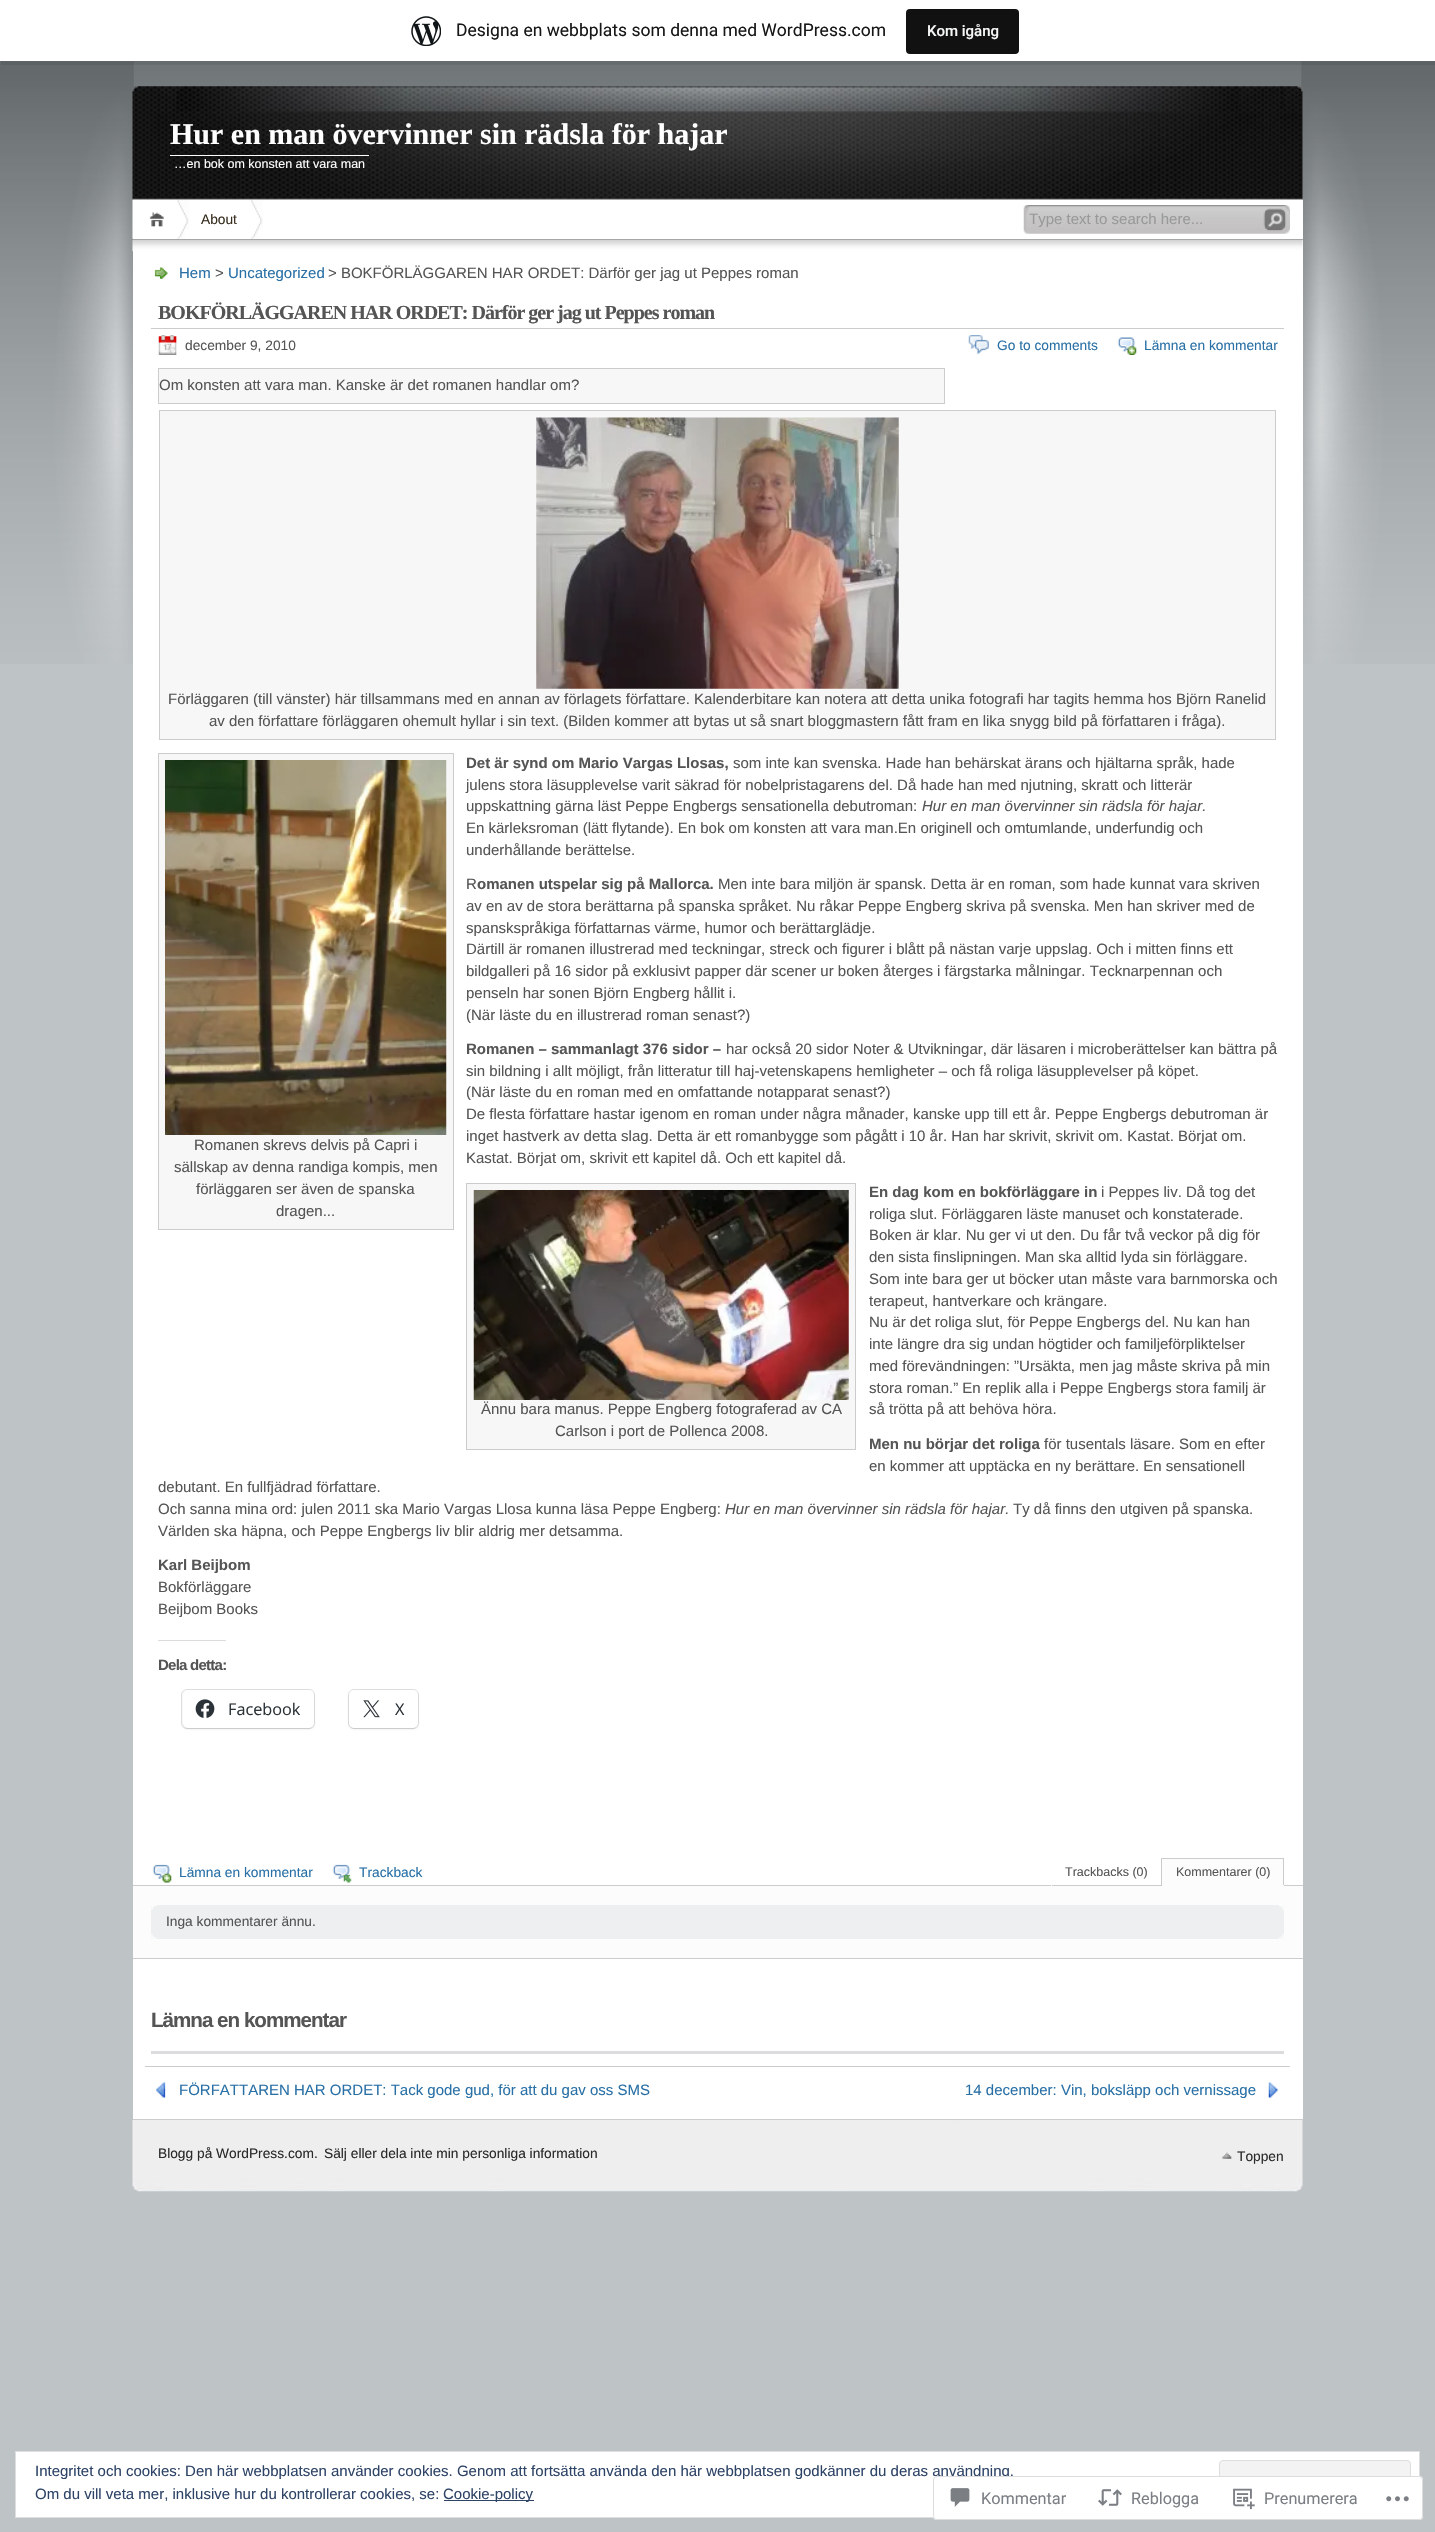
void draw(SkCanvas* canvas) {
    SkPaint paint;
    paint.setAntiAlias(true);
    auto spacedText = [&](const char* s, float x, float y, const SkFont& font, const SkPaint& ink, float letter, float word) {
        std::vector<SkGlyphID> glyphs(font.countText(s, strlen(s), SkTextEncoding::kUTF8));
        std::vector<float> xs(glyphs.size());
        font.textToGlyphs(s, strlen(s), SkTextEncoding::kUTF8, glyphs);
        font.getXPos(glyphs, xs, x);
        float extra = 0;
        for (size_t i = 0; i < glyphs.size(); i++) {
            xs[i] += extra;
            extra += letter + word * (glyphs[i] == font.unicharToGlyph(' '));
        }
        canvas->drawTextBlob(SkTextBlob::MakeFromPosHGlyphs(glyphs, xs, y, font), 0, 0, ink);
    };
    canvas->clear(0xFFBEC3C6);
    canvas->drawImageRect(SkImages::DeferredFromEncodedData(SkData::MakeFromFileName("img1.png")), SkRect::MakeXYWH(0, 61, 1435, 138), SkSamplingOptions());
    canvas->drawImageRect(SkImages::DeferredFromEncodedData(SkData::MakeFromFileName("img3.png")), SkRect::MakeXYWH(0, 61, 1435, 603), SkSamplingOptions());
    paint.setColor(0x14000000);
    canvas->drawPath(SkPathBuilder().moveTo(1, 61).lineTo(1, 65).lineTo(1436, 65).lineTo(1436, 4).lineTo(1435, 4).lineTo(1435, 61).close().detach(), paint);
    paint.setColor(0xFFFFFFFF);
    canvas->drawRect(SkRect::MakeXYWH(0, 0, 1435, 61), paint);
    canvas->drawImageRect(SkImages::DeferredFromEncodedData(SkData::MakeFromFileName("img2.png")), SkRect::MakeXYWH(411, 16, 30, 30), SkSamplingOptions());
    SkFont font1(fontMgr->matchFamilyStyle("Roboto", SkFontStyle::Normal()), 17.5f);
    font1.setSubpixel(true);
    paint.setColor(0xFF171717);
    canvas->drawString("Designa en webbplats som denna med WordPress.com", 456, 36, font1, paint);
    paint.setColor(0xFF111111);
    canvas->drawRoundRect(SkRect::MakeXYWH(906, 9, 113, 45), 4, 4, paint);
    SkFont font2(fontMgr->matchFamilyStyle("Roboto", SkFontStyle(500, SkFontStyle::kNormal_Width, SkFontStyle::kUpright_Slant)), 15);
    font2.setSubpixel(true);
    paint.setColor(0xFFF6F7F7);
    canvas->drawString("Kom igång", 927, 36, font2, paint);
    canvas->drawImageRect(SkImages::DeferredFromEncodedData(SkData::MakeFromFileName("img4.png")), SkRect::MakeXYWH(132, 86, 1171, 113), SkSamplingOptions());
    paint.setColor(0xFFA6A6A6);
    canvas->drawRect(SkRect::MakeXYWH(133, 199, 1170, 1), paint);
    SkFont font3(fontMgr->matchFamilyStyle("Liberation Serif", SkFontStyle::Bold()), 30);
    font3.setSubpixel(true);
    paint.setColor(0xFFFFFFFF);
    canvas->drawString("Hur en man övervinner sin rädsla för hajar", 170, 144, font3, paint);
    canvas->drawRect(SkRect::MakeXYWH(170, 155, 199, 1), paint);
    SkFont font4(fontMgr->matchFamilyStyle("Liberation Sans", SkFontStyle::Normal()), 12.5f);
    font4.setSubpixel(true);
    canvas->drawString("…en bok om konsten att vara man", 174, 168, font4, paint);
    canvas->drawRect(SkRect::MakeXYWH(133, 200, 1170, 39), paint);
    paint.setColor(0xFFA6A6A6);
    canvas->drawRect(SkRect::MakeXYWH(133, 239, 1170, 1), paint);
    canvas->drawImageRect(SkImages::DeferredFromEncodedData(SkData::MakeFromFileName("img5.png")), SkRect::MakeXYWH(132, 200, 32, 39), SkSamplingOptions());
    canvas->drawImageRect(SkImages::DeferredFromEncodedData(SkData::MakeFromFileName("img6.png")), SkRect::MakeXYWH(177, 200, 12, 39), SkSamplingOptions());
    SkFont font5(fontMgr->matchFamilyStyle("Liberation Sans", SkFontStyle::Normal()), 13.75f);
    font5.setSubpixel(true);
    paint.setColor(0xFF382E1F);
    canvas->drawString("About", 201, 224, font5, paint);
    canvas->drawImageRect(SkImages::DeferredFromEncodedData(SkData::MakeFromFileName("img7.png")), SkRect::MakeXYWH(251, 200, 12, 39), SkSamplingOptions());
    canvas->drawImageRect(SkImages::DeferredFromEncodedData(SkData::MakeFromFileName("img8.png")), SkRect::MakeXYWH(1023, 205, 267, 29), SkSamplingOptions());
    SkFont font6(fontMgr->matchFamilyStyle("Liberation Sans", SkFontStyle::Normal()), 15);
    font6.setSubpixel(true);
    paint.setColor(0xFF999999);
    canvas->drawString("Type text to search here...", 1029, 224, font6, paint);
    paint.setColor(0xFFFFFFFF);
    canvas->drawRect(SkRect::MakeXYWH(133, 240, 1170, 1879), paint);
    canvas->drawImageRect(SkImages::DeferredFromEncodedData(SkData::MakeFromFileName("img9.png")), SkRect::MakeXYWH(132, 240, 1171, 12), SkSamplingOptions());
    canvas->drawImageRect(SkImages::DeferredFromEncodedData(SkData::MakeFromFileName("img10.png")), SkRect::MakeXYWH(154, 267, 14, 13), SkSamplingOptions());
    paint.setColor(0xFF2970A6);
    canvas->drawString("Hem", 179, 278, font6, paint);
    paint.setColor(0xFF555555);
    canvas->drawString(">", 215, 278, font6, paint);
    paint.setColor(0xFF2970A6);
    canvas->drawString("Uncategorized", 228, 278, font6, paint);
    paint.setColor(0xFF555555);
    canvas->drawString("> BOKFÖRLÄGGAREN HAR ORDET: Därför ger jag ut Peppes roman", 328, 278, font6, paint);
    paint.setColor(0xFFCCCCCC);
    canvas->drawRect(SkRect::MakeXYWH(151, 328, 1133, 1), paint);
    SkFont font7(fontMgr->matchFamilyStyle("Liberation Serif", SkFontStyle::Bold()), 20);
    font7.setSubpixel(true);
    paint.setColor(0xFF555555);
    spacedText("BOKFÖRLÄGGAREN HAR ORDET: Därför ger jag ut Peppes roman", 158, 319, font7, paint, -1, 0);
    canvas->drawImageRect(SkImages::DeferredFromEncodedData(SkData::MakeFromFileName("img11.png")), SkRect::MakeXYWH(158, 335, 19, 20), SkSamplingOptions());
    canvas->drawString("december 9, 2010", 185, 350, font5, paint);
    canvas->drawImageRect(SkImages::DeferredFromEncodedData(SkData::MakeFromFileName("img12.png")), SkRect::MakeXYWH(968, 335, 21, 19), SkSamplingOptions());
    paint.setColor(0xFF2970A6);
    canvas->drawString("Go to comments", 997, 350, font5, paint);
    canvas->drawImageRect(SkImages::DeferredFromEncodedData(SkData::MakeFromFileName("img13.png")), SkRect::MakeXYWH(1117, 337, 20, 18), SkSamplingOptions());
    canvas->drawString("Lämna en kommentar", 1144, 350, font5, paint);
    paint.setColor(0xFFF7F7F7);
    canvas->drawRect(SkRect::MakeXYWH(158.5f, 368.5f, 786, 35), paint);
    paint.setStyle(SkPaint::kStroke_Style);
    paint.setStrokeWidth(1);
    paint.setColor(0xFFCCCCCC);
    canvas->drawRect(SkRect::MakeXYWH(158.5f, 368.5f, 786, 35), paint);
    paint.setStyle(SkPaint::kFill_Style);
    paint.setColor(0xFF555555);
    canvas->drawString("Om konsten att vara man. Kanske är det romanen handlar om?", 159, 390, font6, paint);
    paint.setColor(0xFFF7F7F7);
    canvas->drawRect(SkRect::MakeXYWH(159.5f, 410.5f, 1116, 329), paint);
    paint.setStyle(SkPaint::kStroke_Style);
    paint.setColor(0xFFCCCCCC);
    canvas->drawRect(SkRect::MakeXYWH(159.5f, 410.5f, 1116, 329), paint);
    canvas->drawImageRect(SkImages::DeferredFromEncodedData(SkData::MakeFromFileName("img14.png")), SkRect::MakeXYWH(536, 417, 363, 272), SkSamplingOptions());
    paint.setStyle(SkPaint::kFill_Style);
    paint.setColor(0xFF555555);
    canvas->drawString("Förläggaren (till vänster) här tillsammans med en annan av förlagets författare. Kalenderbitare kan notera att detta unika fotografi har tagits hemma hos Björn Ranelid", 168, 704, font6, paint);
    canvas->drawString("av den författare förläggaren ohemult hyllar i sin text. (Bilden kommer att bytas ut så snart bloggmastern fått fram en lika snygg bild på författaren i fråga).", 209, 726, font6, paint);
    SkFont font8(fontMgr->matchFamilyStyle("Liberation Sans", SkFontStyle::Bold()), 15);
    font8.setSubpixel(true);
    canvas->drawString("Det är synd om Mario Vargas Llosas,", 466, 768, font8, paint);
    canvas->drawString("som inte kan svenska. Hade han behärskat ärans och hjältarna språk, hade", 733, 768, font6, paint);
    canvas->drawString("julens stora läsupplevelse varit säkrad för nobelpristagarens del. Då hade han med njutning, skratt och litterär", 466, 790, font6, paint);
    canvas->drawString("uppskattning gärna läst Peppe Engbergs sensationella debutroman:", 466, 811, font6, paint);
    SkFont font9(fontMgr->matchFamilyStyle("Liberation Sans", SkFontStyle::Italic()), 15);
    font9.setSubpixel(true);
    canvas->drawString("Hur en man övervinner sin rädsla för hajar.", 922, 811, font9, paint);
    canvas->drawString("En kärleksroman (lätt flytande). En bok om konsten att vara man.En originell och omtumlande, underfundig och", 466, 833, font6, paint);
    canvas->drawString("underhållande berättelse.", 466, 855, font6, paint);
    canvas->drawString("R", 466, 889, font6, paint);
    canvas->drawString("omanen utspelar sig på Mallorca.", 477, 889, font8, paint);
    canvas->drawString("Men inte bara miljön är spansk. Detta är en roman, som hade kunnat vara skriven", 718, 889, font6, paint);
    canvas->drawString("av en av de stora berättarna på spanska språket. Nu råkar Peppe Engberg skriva på svenska. Men han skriver med de", 466, 911, font6, paint);
    canvas->drawString("spanskspråkiga författarnas värme, humor och berättarglädje.", 466, 933, font6, paint);
    canvas->drawString("Därtill är romanen illustrerad med teckningar, streck och figurer i blått på nästan varje uppslag. Och i mitten finns ett", 466, 954, font6, paint);
    canvas->drawString("bildgalleri på 16 sidor på exklusivt papper där scener ur boken återges i färgstarka målningar. Tecknarpennan och", 466, 976, font6, paint);
    canvas->drawString("penseln har sonen Björn Engberg hållit i.", 466, 998, font6, paint);
    canvas->drawString("(När läste du en illustrerad roman senast?)", 466, 1020, font6, paint);
    canvas->drawString("Romanen – sammanlagt 376 sidor –", 466, 1054, font8, paint);
    canvas->drawString("har också 20 sidor Noter & Utvikningar, där läsaren i microberättelser kan bättra på", 726, 1054, font6, paint);
    canvas->drawString("sin bildning i allt möjligt, från litteratur till haj-vetenskapens hemligheter – och få roliga läsupplevelser på köpet.", 466, 1076, font6, paint);
    canvas->drawString("(När läste du en roman med en omfattande notapparat senast?)", 466, 1097, font6, paint);
    canvas->drawString("De flesta författare hastar igenom en roman under några månader, kanske upp till ett år. Peppe Engbergs debutroman är", 466, 1119, font6, paint);
    canvas->drawString("inget hastverk av detta slag. Detta är ett romanbygge som pågått i 10 år. Han har skrivit, skrivit om. Kastat. Börjat om.", 466, 1141, font6, paint);
    canvas->drawString("Kastat. Börjat om, skrivit ett kapitel då. Och ett kapitel då.", 466, 1163, font6, paint);
    paint.setColor(0xFFF7F7F7);
    canvas->drawRect(SkRect::MakeXYWH(158.5f, 753.5f, 295, 476), paint);
    paint.setStyle(SkPaint::kStroke_Style);
    paint.setColor(0xFFCCCCCC);
    canvas->drawRect(SkRect::MakeXYWH(158.5f, 753.5f, 295, 476), paint);
    canvas->drawImageRect(SkImages::DeferredFromEncodedData(SkData::MakeFromFileName("img15.png")), SkRect::MakeXYWH(165, 760, 282, 375), SkSamplingOptions());
    paint.setStyle(SkPaint::kFill_Style);
    paint.setColor(0xFF555555);
    canvas->drawString("Romanen skrevs delvis på Capri i", 194, 1150, font6, paint);
    canvas->drawString("sällskap av denna randiga kompis, men", 174, 1172, font6, paint);
    canvas->drawString("förläggaren ser även de spanska", 196, 1194, font6, paint);
    canvas->drawString("dragen...", 276, 1216, font6, paint);
    paint.setColor(0xFFF7F7F7);
    canvas->drawRect(SkRect::MakeXYWH(466.5f, 1183.5f, 389, 266), paint);
    paint.setStyle(SkPaint::kStroke_Style);
    paint.setColor(0xFFCCCCCC);
    canvas->drawRect(SkRect::MakeXYWH(466.5f, 1183.5f, 389, 266), paint);
    canvas->drawImageRect(SkImages::DeferredFromEncodedData(SkData::MakeFromFileName("img16.png")), SkRect::MakeXYWH(473, 1190, 376, 210), SkSamplingOptions());
    paint.setStyle(SkPaint::kFill_Style);
    paint.setColor(0xFF555555);
    canvas->drawString("Ännu bara manus. Peppe Engberg fotograferad av CA", 481, 1414, font6, paint);
    canvas->drawString("Carlson i port de Pollenca 2008.", 555, 1436, font6, paint);
    canvas->drawString("En dag kom en bokförläggare in", 869, 1197, font8, paint);
    canvas->drawString("i Peppes liv. Då tog det", 1101, 1197, font6, paint);
    canvas->drawString("roliga slut. Förläggaren läste manuset och konstaterade.", 869, 1219, font6, paint);
    canvas->drawString("Boken är klar. Nu ger vi ut den. Du får två veckor på dig för", 869, 1240, font6, paint);
    canvas->drawString("den sista finslipningen. Man ska alltid lyda sin förläggare.", 869, 1262, font6, paint);
    canvas->drawString("Som inte bara ger ut böcker utan måste vara barnmorska och", 869, 1284, font6, paint);
    canvas->drawString("terapeut, hantverkare och krängare.", 869, 1306, font6, paint);
    canvas->drawString("Nu är det roliga slut, för Peppe Engbergs del. Nu kan han", 869, 1327, font6, paint);
    canvas->drawString("inte längre dra sig undan högtider och familjeförpliktelser", 869, 1349, font6, paint);
    canvas->drawString("med förevändningen: ”Ursäkta, men jag måste skriva på min", 869, 1371, font6, paint);
    canvas->drawString("stora roman.” En replik alla i Peppe Engbergs stora familj är", 869, 1393, font6, paint);
    canvas->drawString("så trötta på att behöva höra.", 869, 1414, font6, paint);
    canvas->drawString("Men nu börjar det roliga", 869, 1449, font8, paint);
    canvas->drawString("för tusentals läsare. Som en efter", 1044, 1449, font6, paint);
    canvas->drawString("en kommer att upptäcka en ny berättare. En sensationell", 869, 1471, font6, paint);
    canvas->drawString("debutant. En fullfjädrad författare.", 158, 1492, font6, paint);
    canvas->drawString("Och sanna mina ord: julen 2011 ska Mario Vargas Llosa kunna läsa Peppe Engberg:", 158, 1514, font6, paint);
    canvas->drawString("Hur en man övervinner sin rädsla för hajar.", 725, 1514, font9, paint);
    canvas->drawString("Ty då finns den utgiven på spanska.", 1013, 1514, font6, paint);
    canvas->drawString("Världen ska häpna, och Peppe Engbergs liv blir aldrig mer detsamma.", 158, 1536, font6, paint);
    canvas->drawString("Karl Beijbom", 158, 1570, font8, paint);
    canvas->drawString("Bokförläggare", 158, 1592, font6, paint);
    canvas->drawString("Beijbom Books", 158, 1614, font6, paint);
    paint.setColor(0xFFDCDCDE);
    canvas->drawRect(SkRect::MakeXYWH(158, 1640, 68, 1), paint);
    paint.setColor(0xFF555555);
    spacedText("Dela detta:", 158, 1670, font8, paint, -0.75f, 0);
    paint.setStyle(SkPaint::kStroke_Style);
    paint.setColor(0xFFE0E0E0);
    canvas->drawRoundRect(SkRect::MakeXYWH(181.5f, 1689.5f, 133, 39), 5.5f, 5.5f, paint);
    paint.setStyle(SkPaint::kFill_Style);
    paint.setColor(0x1F000000);
    paint.setMaskFilter(SkMaskFilter::MakeBlur(kNormal_SkBlurStyle, 1));
    canvas->drawRoundRect(SkRect::MakeXYWH(183, 1691, 131, 38), 5, 5, paint);
    paint.setMaskFilter(nullptr);
    paint.setColor(0xFFFFFFFF);
    canvas->drawRoundRect(SkRect::MakeXYWH(183, 1690, 131, 38), 5, 5, paint);
    canvas->drawImageRect(SkImages::DeferredFromEncodedData(SkData::MakeFromFileName("img17.png")), SkRect::MakeXYWH(195, 1699, 20, 19), SkSamplingOptions());
    SkFont font10(fontMgr->matchFamilyStyle("Open Sans", SkFontStyle::Normal()), 16.25f);
    font10.setSubpixel(true);
    paint.setColor(0xFF2C3338);
    canvas->drawString("Facebook", 228, 1715, font10, paint);
    paint.setStyle(SkPaint::kStroke_Style);
    paint.setColor(0xFFE0E0E0);
    canvas->drawRoundRect(SkRect::MakeXYWH(348.5f, 1689.5f, 70, 39), 5.5f, 5.5f, paint);
    paint.setStyle(SkPaint::kFill_Style);
    paint.setColor(0x1F000000);
    paint.setMaskFilter(SkMaskFilter::MakeBlur(kNormal_SkBlurStyle, 1));
    canvas->drawRoundRect(SkRect::MakeXYWH(349, 1691, 69, 38), 5, 5, paint);
    paint.setMaskFilter(nullptr);
    paint.setColor(0xFFFFFFFF);
    canvas->drawRoundRect(SkRect::MakeXYWH(349, 1690, 69, 38), 5, 5, paint);
    canvas->drawImageRect(SkImages::DeferredFromEncodedData(SkData::MakeFromFileName("img18.png")), SkRect::MakeXYWH(363, 1700, 17, 18), SkSamplingOptions());
    paint.setColor(0xFF2C3338);
    canvas->drawString("X", 395, 1715, font10, paint);
    canvas->drawImageRect(SkImages::DeferredFromEncodedData(SkData::MakeFromFileName("img19.png")), SkRect::MakeXYWH(152, 1864, 20, 19), SkSamplingOptions());
    paint.setColor(0xFF2970A6);
    canvas->drawString("Lämna en kommentar", 179, 1877, font5, paint);
    canvas->drawImageRect(SkImages::DeferredFromEncodedData(SkData::MakeFromFileName("img20.png")), SkRect::MakeXYWH(332, 1864, 20, 19), SkSamplingOptions());
    canvas->drawString("Trackback", 359, 1877, font5, paint);
    paint.setColor(0xFFCCCCCC);
    canvas->drawRect(SkRect::MakeXYWH(133, 1885, 1170, 1), paint);
    paint.setColor(0xFFFFFFFF);
    canvas->drawRect(SkRect::MakeXYWH(1160, 1885, 1, 1), paint);
    paint.setColor(0xFFCCCCCC);
    canvas->drawRect(SkRect::MakeXYWH(1160, 1885, 1, 1), paint);
    paint.setColor(0xFFFFFFFF);
    canvas->drawRect(SkRect::MakeXYWH(1051, 1885, 1, 1), paint);
    paint.setColor(0xFF555555);
    canvas->drawString("Trackbacks (0)", 1065, 1876, font4, paint);
    paint.setColor(0xFFFCFCFC);
    canvas->drawRect(SkRect::MakeXYWH(1162, 1859, 121, 26), paint);
    paint.setColor(0xFFCCCCCC);
    canvas->drawRect(SkRect::MakeXYWH(1161, 1858, 123, 1), paint);
    canvas->drawRect(SkRect::MakeXYWH(1283, 1858, 1, 28), paint);
    paint.setColor(0xFFFCFCFC);
    canvas->drawRect(SkRect::MakeXYWH(1161, 1885, 123, 1), paint);
    paint.setColor(0xFFCCCCCC);
    canvas->drawRect(SkRect::MakeXYWH(1161, 1858, 1, 28), paint);
    paint.setColor(0xFF555555);
    canvas->drawString("Kommentarer (0)", 1176, 1876, font4, paint);
    paint.setColor(0xFFFCFCFC);
    canvas->drawRect(SkRect::MakeXYWH(133, 1886, 1170, 72), paint);
    paint.setColor(0xFFCCCCCC);
    canvas->drawRect(SkRect::MakeXYWH(133, 1958, 1170, 1), paint);
    paint.setColor(0xFFEDEFF0);
    canvas->drawRect(SkRect::MakeXYWH(151, 1905, 1133, 34), paint);
    canvas->drawImageRect(SkImages::DeferredFromEncodedData(SkData::MakeFromFileName("img21.png")), SkRect::MakeXYWH(151, 1905, 1133, 34), SkSamplingOptions());
    paint.setColor(0xFF555555);
    canvas->drawString("Inga kommentarer ännu.", 166, 1926, font5, paint);
    SkFont font11(fontMgr->matchFamilyStyle("Liberation Sans", SkFontStyle::Bold()), 20.6f);
    font11.setSubpixel(true);
    spacedText("Lämna en kommentar", 151, 2027, font11, paint, -1, 0);
    paint.setColor(0xFFDCDCDE);
    canvas->drawRect(SkRect::MakeXYWH(151, 2051, 1133, 3), paint);
    paint.setColor(0xFFCCCCCC);
    canvas->drawRect(SkRect::MakeXYWH(145, 2066, 1145, 1), paint);
    canvas->drawImageRect(SkImages::DeferredFromEncodedData(SkData::MakeFromFileName("img22.png")), SkRect::MakeXYWH(156, 2082, 10, 16), SkSamplingOptions());
    paint.setColor(0xFF2970A6);
    canvas->drawString("FÖRFATTAREN HAR ORDET: Tack gode gud, för att du gav oss SMS", 179, 2095, font6, paint);
    canvas->drawImageRect(SkImages::DeferredFromEncodedData(SkData::MakeFromFileName("img23.png")), SkRect::MakeXYWH(1268, 2082, 10, 16), SkSamplingOptions());
    canvas->drawString("14 december: Vin, boksläpp och vernissage", 965, 2095, font6, paint);
    canvas->drawImageRect(SkImages::DeferredFromEncodedData(SkData::MakeFromFileName("img24.png")), SkRect::MakeXYWH(132, 2120, 1171, 72), SkSamplingOptions());
    paint.setColor(0xFFCCCCCC);
    canvas->drawRect(SkRect::MakeXYWH(133, 2119, 1170, 1), paint);
    paint.setColor(0xFF2A2A2A);
    canvas->drawString("Blogg på WordPress.com.", 158, 2158, font5, paint);
    canvas->drawString("Sälj eller dela inte min personliga information", 324, 2158, font5, paint);
    canvas->drawImageRect(SkImages::DeferredFromEncodedData(SkData::MakeFromFileName("img25.png")), SkRect::MakeXYWH(1222, 2152, 10, 7), SkSamplingOptions());
    canvas->drawString("Toppen", 1237, 2161, font5, paint);
    paint.setColor(0xFFFFFFFF);
    canvas->drawRect(SkRect::MakeXYWH(15.5f, 2451.5f, 1404, 66), paint);
    paint.setStyle(SkPaint::kStroke_Style);
    paint.setColor(0xFFDEDEDE);
    canvas->drawRect(SkRect::MakeXYWH(15.5f, 2451.5f, 1404, 66), paint);
    paint.setStyle(SkPaint::kFill_Style);
    paint.setColor(0xFF2E4467);
    canvas->drawString("Integritet och cookies: Den här webbplatsen använder cookies. Genom att fortsätta använda den här webbplatsen godkänner du deras användning.", 35, 2476, font6, paint);
    paint.setColor(0xFFF3F3F3);
    canvas->drawRoundRect(SkRect::MakeXYWH(1219.5f, 2460.5f, 191, 48), 3.5f, 3.5f, paint);
    paint.setStyle(SkPaint::kStroke_Style);
    paint.setColor(0xFFDEDEDE);
    canvas->drawRoundRect(SkRect::MakeXYWH(1219.5f, 2460.5f, 191, 48), 3.5f, 3.5f, paint);
    paint.setStyle(SkPaint::kFill_Style);
    paint.setColor(0xFF2E4467);
    canvas->drawString("Om du vill veta mer, inklusive hur du kontrollerar cookies, se:", 35, 2499, font6, paint);
    canvas->drawRect(SkRect::MakeXYWH(444, 2500, 90, 1), paint);
    canvas->drawString("Cookie-policy", 443, 2499, font6, paint);
    paint.setColor(0xFAFFFFFF);
    canvas->drawRoundRect(SkRect::MakeXYWH(933, 2476, 490, 44), 4, 4, paint);
    paint.setStyle(SkPaint::kStroke_Style);
    paint.setColor(0xFADCDCDE);
    canvas->drawRoundRect(SkRect::MakeXYWH(933.5f, 2476.5f, 489, 43), 3.5f, 3.5f, paint);
    canvas->drawImageRect(SkImages::DeferredFromEncodedData(SkData::MakeFromFileName("img26.png")), SkRect::MakeXYWH(950, 2488, 20, 19), SkSamplingOptions());
    SkFont font12(fontMgr->matchFamilyStyle("Roboto", SkFontStyle::Normal()), 16.25f);
    font12.setSubpixel(true);
    paint.setStyle(SkPaint::kFill_Style);
    paint.setColor(0xFF7B7F85);
    canvas->drawString("Kommentar", 981, 2504, font12, paint);
    canvas->drawImageRect(SkImages::DeferredFromEncodedData(SkData::MakeFromFileName("img27.png")), SkRect::MakeXYWH(1098, 2489, 24, 17), SkSamplingOptions());
    canvas->drawString("Reblogga", 1131, 2504, font12, paint);
    canvas->drawImageRect(SkImages::DeferredFromEncodedData(SkData::MakeFromFileName("img28.png")), SkRect::MakeXYWH(1233, 2488, 22, 22), SkSamplingOptions());
    canvas->drawString("Prenumerera", 1264, 2504, font12, paint);
    canvas->drawImageRect(SkImages::DeferredFromEncodedData(SkData::MakeFromFileName("img29.png")), SkRect::MakeXYWH(1386, 2496, 23, 6), SkSamplingOptions());
}
